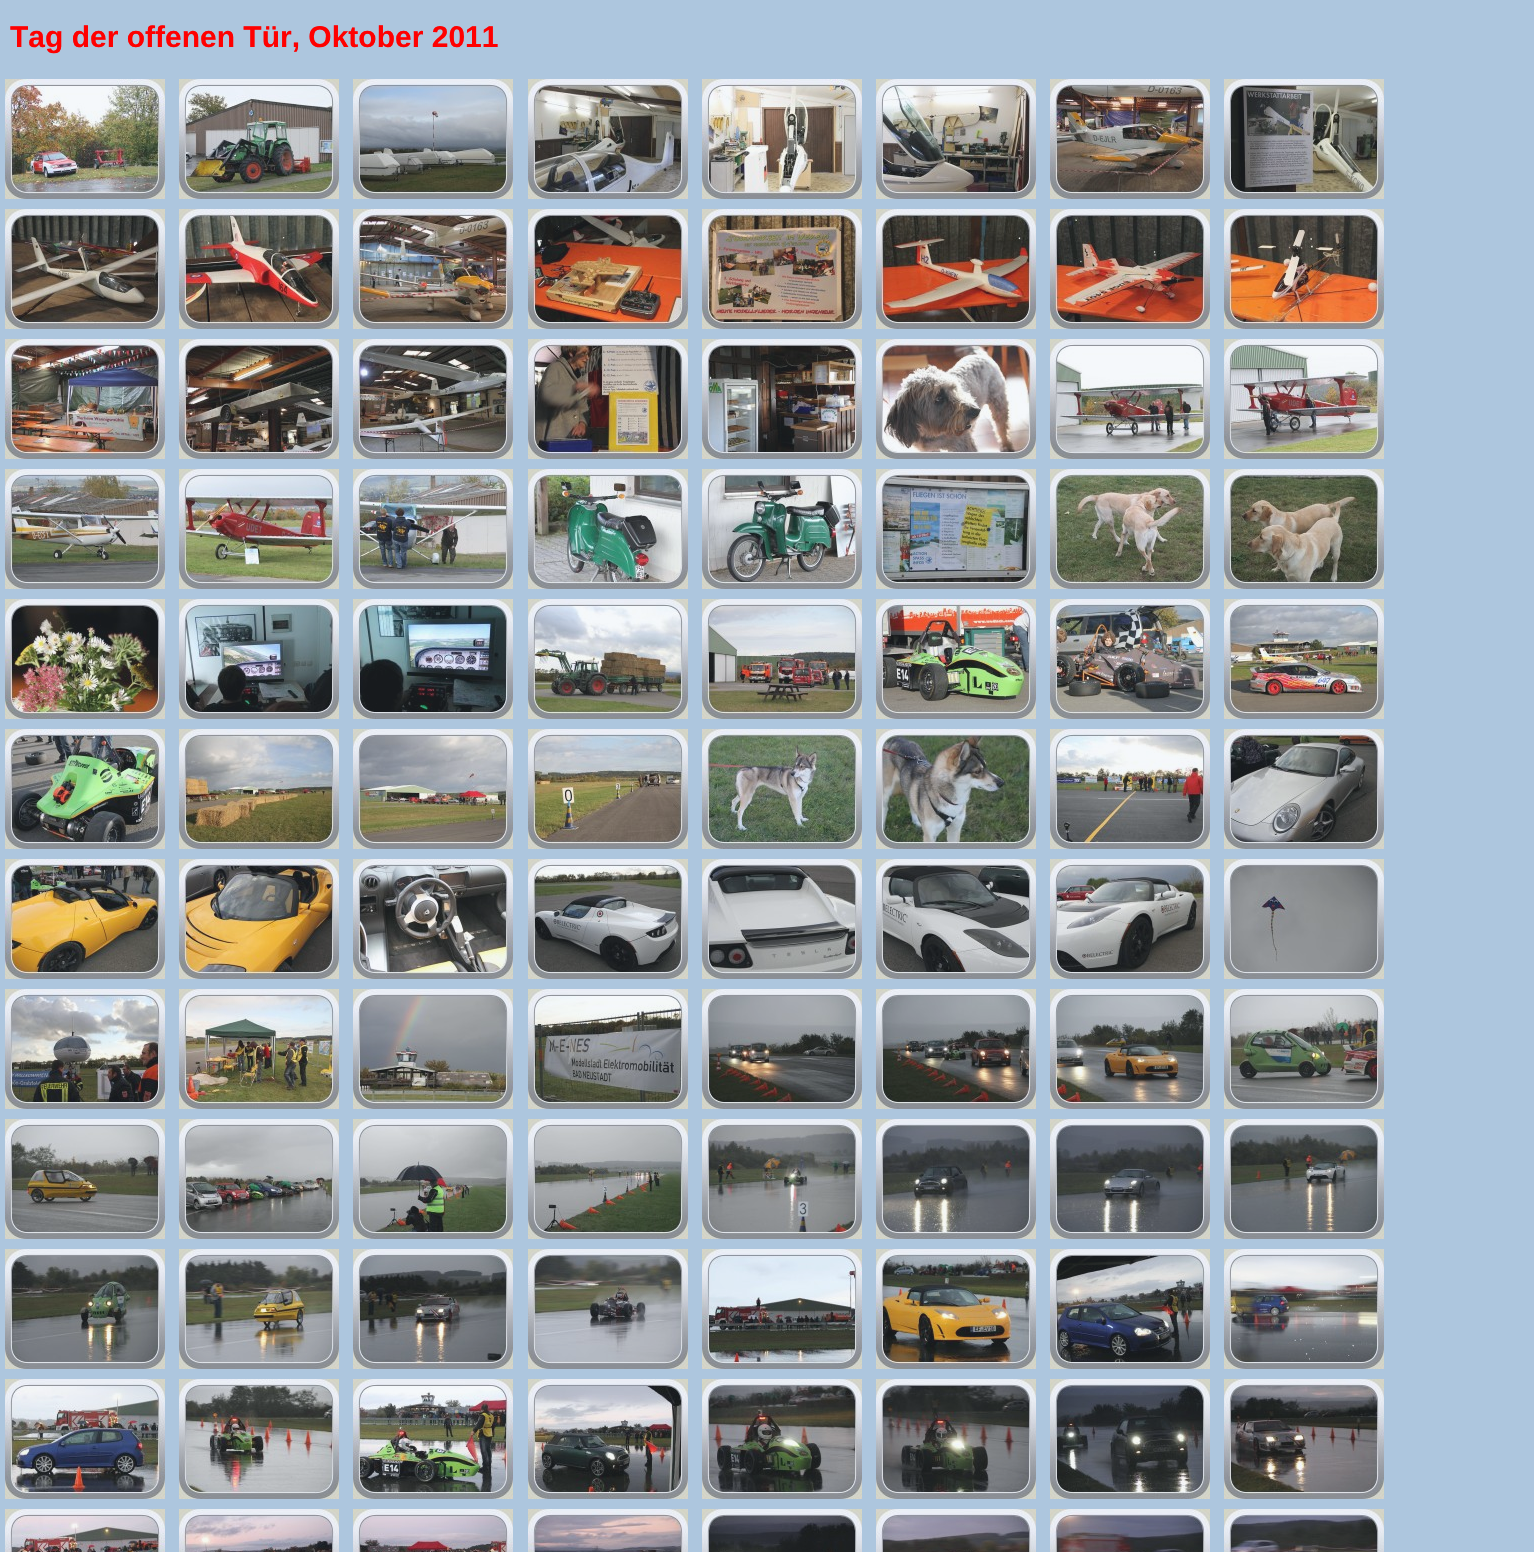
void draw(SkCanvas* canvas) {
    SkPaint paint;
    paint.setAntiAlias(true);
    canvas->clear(0xFFADC6DE);
    SkFont font1(fontMgr->matchFamilyStyle("Liberation Sans", SkFontStyle::Bold()), 30);
    font1.setSubpixel(true);
    paint.setColor(0xFFFF0000);
    canvas->drawString("Tag der offenen Tür, Oktober 2011", 10, 47, font1, paint);
    canvas->drawImageRect(SkImages::DeferredFromEncodedData(SkData::MakeFromFileName("img1.png")), SkRect::MakeXYWH(5, 79, 160, 120), SkSamplingOptions());
    canvas->drawImageRect(SkImages::DeferredFromEncodedData(SkData::MakeFromFileName("img2.png")), SkRect::MakeXYWH(179, 79, 160, 120), SkSamplingOptions());
    canvas->drawImageRect(SkImages::DeferredFromEncodedData(SkData::MakeFromFileName("img3.png")), SkRect::MakeXYWH(353, 79, 160, 120), SkSamplingOptions());
    canvas->drawImageRect(SkImages::DeferredFromEncodedData(SkData::MakeFromFileName("img4.png")), SkRect::MakeXYWH(528, 79, 160, 120), SkSamplingOptions());
    canvas->drawImageRect(SkImages::DeferredFromEncodedData(SkData::MakeFromFileName("img5.png")), SkRect::MakeXYWH(702, 79, 160, 120), SkSamplingOptions());
    canvas->drawImageRect(SkImages::DeferredFromEncodedData(SkData::MakeFromFileName("img6.png")), SkRect::MakeXYWH(876, 79, 160, 120), SkSamplingOptions());
    canvas->drawImageRect(SkImages::DeferredFromEncodedData(SkData::MakeFromFileName("img7.png")), SkRect::MakeXYWH(1050, 79, 160, 120), SkSamplingOptions());
    canvas->drawImageRect(SkImages::DeferredFromEncodedData(SkData::MakeFromFileName("img8.png")), SkRect::MakeXYWH(1224, 79, 160, 120), SkSamplingOptions());
    canvas->drawImageRect(SkImages::DeferredFromEncodedData(SkData::MakeFromFileName("img9.png")), SkRect::MakeXYWH(5, 209, 160, 120), SkSamplingOptions());
    canvas->drawImageRect(SkImages::DeferredFromEncodedData(SkData::MakeFromFileName("img10.png")), SkRect::MakeXYWH(179, 209, 160, 120), SkSamplingOptions());
    canvas->drawImageRect(SkImages::DeferredFromEncodedData(SkData::MakeFromFileName("img11.png")), SkRect::MakeXYWH(353, 209, 160, 120), SkSamplingOptions());
    canvas->drawImageRect(SkImages::DeferredFromEncodedData(SkData::MakeFromFileName("img12.png")), SkRect::MakeXYWH(528, 209, 160, 120), SkSamplingOptions());
    canvas->drawImageRect(SkImages::DeferredFromEncodedData(SkData::MakeFromFileName("img13.png")), SkRect::MakeXYWH(702, 209, 160, 120), SkSamplingOptions());
    canvas->drawImageRect(SkImages::DeferredFromEncodedData(SkData::MakeFromFileName("img14.png")), SkRect::MakeXYWH(876, 209, 160, 120), SkSamplingOptions());
    canvas->drawImageRect(SkImages::DeferredFromEncodedData(SkData::MakeFromFileName("img15.png")), SkRect::MakeXYWH(1050, 209, 160, 120), SkSamplingOptions());
    canvas->drawImageRect(SkImages::DeferredFromEncodedData(SkData::MakeFromFileName("img16.png")), SkRect::MakeXYWH(1224, 209, 160, 120), SkSamplingOptions());
    canvas->drawImageRect(SkImages::DeferredFromEncodedData(SkData::MakeFromFileName("img17.png")), SkRect::MakeXYWH(5, 339, 160, 120), SkSamplingOptions());
    canvas->drawImageRect(SkImages::DeferredFromEncodedData(SkData::MakeFromFileName("img18.png")), SkRect::MakeXYWH(179, 339, 160, 120), SkSamplingOptions());
    canvas->drawImageRect(SkImages::DeferredFromEncodedData(SkData::MakeFromFileName("img19.png")), SkRect::MakeXYWH(353, 339, 160, 120), SkSamplingOptions());
    canvas->drawImageRect(SkImages::DeferredFromEncodedData(SkData::MakeFromFileName("img20.png")), SkRect::MakeXYWH(528, 339, 160, 120), SkSamplingOptions());
    canvas->drawImageRect(SkImages::DeferredFromEncodedData(SkData::MakeFromFileName("img21.png")), SkRect::MakeXYWH(702, 339, 160, 120), SkSamplingOptions());
    canvas->drawImageRect(SkImages::DeferredFromEncodedData(SkData::MakeFromFileName("img22.png")), SkRect::MakeXYWH(876, 339, 160, 120), SkSamplingOptions());
    canvas->drawImageRect(SkImages::DeferredFromEncodedData(SkData::MakeFromFileName("img23.png")), SkRect::MakeXYWH(1050, 339, 160, 120), SkSamplingOptions());
    canvas->drawImageRect(SkImages::DeferredFromEncodedData(SkData::MakeFromFileName("img24.png")), SkRect::MakeXYWH(1224, 339, 160, 120), SkSamplingOptions());
    canvas->drawImageRect(SkImages::DeferredFromEncodedData(SkData::MakeFromFileName("img25.png")), SkRect::MakeXYWH(5, 469, 160, 120), SkSamplingOptions());
    canvas->drawImageRect(SkImages::DeferredFromEncodedData(SkData::MakeFromFileName("img26.png")), SkRect::MakeXYWH(179, 469, 160, 120), SkSamplingOptions());
    canvas->drawImageRect(SkImages::DeferredFromEncodedData(SkData::MakeFromFileName("img27.png")), SkRect::MakeXYWH(353, 469, 160, 120), SkSamplingOptions());
    canvas->drawImageRect(SkImages::DeferredFromEncodedData(SkData::MakeFromFileName("img28.png")), SkRect::MakeXYWH(528, 469, 160, 120), SkSamplingOptions());
    canvas->drawImageRect(SkImages::DeferredFromEncodedData(SkData::MakeFromFileName("img29.png")), SkRect::MakeXYWH(702, 469, 160, 120), SkSamplingOptions());
    canvas->drawImageRect(SkImages::DeferredFromEncodedData(SkData::MakeFromFileName("img30.png")), SkRect::MakeXYWH(876, 469, 160, 120), SkSamplingOptions());
    canvas->drawImageRect(SkImages::DeferredFromEncodedData(SkData::MakeFromFileName("img31.png")), SkRect::MakeXYWH(1050, 469, 160, 120), SkSamplingOptions());
    canvas->drawImageRect(SkImages::DeferredFromEncodedData(SkData::MakeFromFileName("img32.png")), SkRect::MakeXYWH(1224, 469, 160, 120), SkSamplingOptions());
    canvas->drawImageRect(SkImages::DeferredFromEncodedData(SkData::MakeFromFileName("img33.png")), SkRect::MakeXYWH(5, 599, 160, 120), SkSamplingOptions());
    canvas->drawImageRect(SkImages::DeferredFromEncodedData(SkData::MakeFromFileName("img34.png")), SkRect::MakeXYWH(179, 599, 160, 120), SkSamplingOptions());
    canvas->drawImageRect(SkImages::DeferredFromEncodedData(SkData::MakeFromFileName("img35.png")), SkRect::MakeXYWH(353, 599, 160, 120), SkSamplingOptions());
    canvas->drawImageRect(SkImages::DeferredFromEncodedData(SkData::MakeFromFileName("img36.png")), SkRect::MakeXYWH(528, 599, 160, 120), SkSamplingOptions());
    canvas->drawImageRect(SkImages::DeferredFromEncodedData(SkData::MakeFromFileName("img37.png")), SkRect::MakeXYWH(702, 599, 160, 120), SkSamplingOptions());
    canvas->drawImageRect(SkImages::DeferredFromEncodedData(SkData::MakeFromFileName("img38.png")), SkRect::MakeXYWH(876, 599, 160, 120), SkSamplingOptions());
    canvas->drawImageRect(SkImages::DeferredFromEncodedData(SkData::MakeFromFileName("img39.png")), SkRect::MakeXYWH(1050, 599, 160, 120), SkSamplingOptions());
    canvas->drawImageRect(SkImages::DeferredFromEncodedData(SkData::MakeFromFileName("img40.png")), SkRect::MakeXYWH(1224, 599, 160, 120), SkSamplingOptions());
    canvas->drawImageRect(SkImages::DeferredFromEncodedData(SkData::MakeFromFileName("img41.png")), SkRect::MakeXYWH(5, 729, 160, 120), SkSamplingOptions());
    canvas->drawImageRect(SkImages::DeferredFromEncodedData(SkData::MakeFromFileName("img42.png")), SkRect::MakeXYWH(179, 729, 160, 120), SkSamplingOptions());
    canvas->drawImageRect(SkImages::DeferredFromEncodedData(SkData::MakeFromFileName("img43.png")), SkRect::MakeXYWH(353, 729, 160, 120), SkSamplingOptions());
    canvas->drawImageRect(SkImages::DeferredFromEncodedData(SkData::MakeFromFileName("img44.png")), SkRect::MakeXYWH(528, 729, 160, 120), SkSamplingOptions());
    canvas->drawImageRect(SkImages::DeferredFromEncodedData(SkData::MakeFromFileName("img45.png")), SkRect::MakeXYWH(702, 729, 160, 120), SkSamplingOptions());
    canvas->drawImageRect(SkImages::DeferredFromEncodedData(SkData::MakeFromFileName("img46.png")), SkRect::MakeXYWH(876, 729, 160, 120), SkSamplingOptions());
    canvas->drawImageRect(SkImages::DeferredFromEncodedData(SkData::MakeFromFileName("img47.png")), SkRect::MakeXYWH(1050, 729, 160, 120), SkSamplingOptions());
    canvas->drawImageRect(SkImages::DeferredFromEncodedData(SkData::MakeFromFileName("img48.png")), SkRect::MakeXYWH(1224, 729, 160, 120), SkSamplingOptions());
    canvas->drawImageRect(SkImages::DeferredFromEncodedData(SkData::MakeFromFileName("img49.png")), SkRect::MakeXYWH(5, 859, 160, 120), SkSamplingOptions());
    canvas->drawImageRect(SkImages::DeferredFromEncodedData(SkData::MakeFromFileName("img50.png")), SkRect::MakeXYWH(179, 859, 160, 120), SkSamplingOptions());
    canvas->drawImageRect(SkImages::DeferredFromEncodedData(SkData::MakeFromFileName("img51.png")), SkRect::MakeXYWH(353, 859, 160, 120), SkSamplingOptions());
    canvas->drawImageRect(SkImages::DeferredFromEncodedData(SkData::MakeFromFileName("img52.png")), SkRect::MakeXYWH(528, 859, 160, 120), SkSamplingOptions());
    canvas->drawImageRect(SkImages::DeferredFromEncodedData(SkData::MakeFromFileName("img53.png")), SkRect::MakeXYWH(702, 859, 160, 120), SkSamplingOptions());
    canvas->drawImageRect(SkImages::DeferredFromEncodedData(SkData::MakeFromFileName("img54.png")), SkRect::MakeXYWH(876, 859, 160, 120), SkSamplingOptions());
    canvas->drawImageRect(SkImages::DeferredFromEncodedData(SkData::MakeFromFileName("img55.png")), SkRect::MakeXYWH(1050, 859, 160, 120), SkSamplingOptions());
    canvas->drawImageRect(SkImages::DeferredFromEncodedData(SkData::MakeFromFileName("img56.png")), SkRect::MakeXYWH(1224, 859, 160, 120), SkSamplingOptions());
    canvas->drawImageRect(SkImages::DeferredFromEncodedData(SkData::MakeFromFileName("img57.png")), SkRect::MakeXYWH(5, 989, 160, 120), SkSamplingOptions());
    canvas->drawImageRect(SkImages::DeferredFromEncodedData(SkData::MakeFromFileName("img58.png")), SkRect::MakeXYWH(179, 989, 160, 120), SkSamplingOptions());
    canvas->drawImageRect(SkImages::DeferredFromEncodedData(SkData::MakeFromFileName("img59.png")), SkRect::MakeXYWH(353, 989, 160, 120), SkSamplingOptions());
    canvas->drawImageRect(SkImages::DeferredFromEncodedData(SkData::MakeFromFileName("img60.png")), SkRect::MakeXYWH(528, 989, 160, 120), SkSamplingOptions());
    canvas->drawImageRect(SkImages::DeferredFromEncodedData(SkData::MakeFromFileName("img61.png")), SkRect::MakeXYWH(702, 989, 160, 120), SkSamplingOptions());
    canvas->drawImageRect(SkImages::DeferredFromEncodedData(SkData::MakeFromFileName("img62.png")), SkRect::MakeXYWH(876, 989, 160, 120), SkSamplingOptions());
    canvas->drawImageRect(SkImages::DeferredFromEncodedData(SkData::MakeFromFileName("img63.png")), SkRect::MakeXYWH(1050, 989, 160, 120), SkSamplingOptions());
    canvas->drawImageRect(SkImages::DeferredFromEncodedData(SkData::MakeFromFileName("img64.png")), SkRect::MakeXYWH(1224, 989, 160, 120), SkSamplingOptions());
    canvas->drawImageRect(SkImages::DeferredFromEncodedData(SkData::MakeFromFileName("img65.png")), SkRect::MakeXYWH(5, 1119, 160, 120), SkSamplingOptions());
    canvas->drawImageRect(SkImages::DeferredFromEncodedData(SkData::MakeFromFileName("img66.png")), SkRect::MakeXYWH(179, 1119, 160, 120), SkSamplingOptions());
    canvas->drawImageRect(SkImages::DeferredFromEncodedData(SkData::MakeFromFileName("img67.png")), SkRect::MakeXYWH(353, 1119, 160, 120), SkSamplingOptions());
    canvas->drawImageRect(SkImages::DeferredFromEncodedData(SkData::MakeFromFileName("img68.png")), SkRect::MakeXYWH(528, 1119, 160, 120), SkSamplingOptions());
    canvas->drawImageRect(SkImages::DeferredFromEncodedData(SkData::MakeFromFileName("img69.png")), SkRect::MakeXYWH(702, 1119, 160, 120), SkSamplingOptions());
    canvas->drawImageRect(SkImages::DeferredFromEncodedData(SkData::MakeFromFileName("img70.png")), SkRect::MakeXYWH(876, 1119, 160, 120), SkSamplingOptions());
    canvas->drawImageRect(SkImages::DeferredFromEncodedData(SkData::MakeFromFileName("img71.png")), SkRect::MakeXYWH(1050, 1119, 160, 120), SkSamplingOptions());
    canvas->drawImageRect(SkImages::DeferredFromEncodedData(SkData::MakeFromFileName("img72.png")), SkRect::MakeXYWH(1224, 1119, 160, 120), SkSamplingOptions());
    canvas->drawImageRect(SkImages::DeferredFromEncodedData(SkData::MakeFromFileName("img73.png")), SkRect::MakeXYWH(5, 1249, 160, 120), SkSamplingOptions());
    canvas->drawImageRect(SkImages::DeferredFromEncodedData(SkData::MakeFromFileName("img74.png")), SkRect::MakeXYWH(179, 1249, 160, 120), SkSamplingOptions());
    canvas->drawImageRect(SkImages::DeferredFromEncodedData(SkData::MakeFromFileName("img75.png")), SkRect::MakeXYWH(353, 1249, 160, 120), SkSamplingOptions());
    canvas->drawImageRect(SkImages::DeferredFromEncodedData(SkData::MakeFromFileName("img76.png")), SkRect::MakeXYWH(528, 1249, 160, 120), SkSamplingOptions());
    canvas->drawImageRect(SkImages::DeferredFromEncodedData(SkData::MakeFromFileName("img77.png")), SkRect::MakeXYWH(702, 1249, 160, 120), SkSamplingOptions());
    canvas->drawImageRect(SkImages::DeferredFromEncodedData(SkData::MakeFromFileName("img78.png")), SkRect::MakeXYWH(876, 1249, 160, 120), SkSamplingOptions());
    canvas->drawImageRect(SkImages::DeferredFromEncodedData(SkData::MakeFromFileName("img79.png")), SkRect::MakeXYWH(1050, 1249, 160, 120), SkSamplingOptions());
    canvas->drawImageRect(SkImages::DeferredFromEncodedData(SkData::MakeFromFileName("img80.png")), SkRect::MakeXYWH(1224, 1249, 160, 120), SkSamplingOptions());
    canvas->drawImageRect(SkImages::DeferredFromEncodedData(SkData::MakeFromFileName("img81.png")), SkRect::MakeXYWH(5, 1379, 160, 120), SkSamplingOptions());
    canvas->drawImageRect(SkImages::DeferredFromEncodedData(SkData::MakeFromFileName("img82.png")), SkRect::MakeXYWH(179, 1379, 160, 120), SkSamplingOptions());
    canvas->drawImageRect(SkImages::DeferredFromEncodedData(SkData::MakeFromFileName("img83.png")), SkRect::MakeXYWH(353, 1379, 160, 120), SkSamplingOptions());
    canvas->drawImageRect(SkImages::DeferredFromEncodedData(SkData::MakeFromFileName("img84.png")), SkRect::MakeXYWH(528, 1379, 160, 120), SkSamplingOptions());
    canvas->drawImageRect(SkImages::DeferredFromEncodedData(SkData::MakeFromFileName("img85.png")), SkRect::MakeXYWH(702, 1379, 160, 120), SkSamplingOptions());
    canvas->drawImageRect(SkImages::DeferredFromEncodedData(SkData::MakeFromFileName("img86.png")), SkRect::MakeXYWH(876, 1379, 160, 120), SkSamplingOptions());
    canvas->drawImageRect(SkImages::DeferredFromEncodedData(SkData::MakeFromFileName("img87.png")), SkRect::MakeXYWH(1050, 1379, 160, 120), SkSamplingOptions());
    canvas->drawImageRect(SkImages::DeferredFromEncodedData(SkData::MakeFromFileName("img88.png")), SkRect::MakeXYWH(1224, 1379, 160, 120), SkSamplingOptions());
    canvas->drawImageRect(SkImages::DeferredFromEncodedData(SkData::MakeFromFileName("img89.png")), SkRect::MakeXYWH(5, 1509, 160, 43), SkSamplingOptions());
    canvas->drawImageRect(SkImages::DeferredFromEncodedData(SkData::MakeFromFileName("img90.png")), SkRect::MakeXYWH(179, 1509, 160, 43), SkSamplingOptions());
    canvas->drawImageRect(SkImages::DeferredFromEncodedData(SkData::MakeFromFileName("img91.png")), SkRect::MakeXYWH(353, 1509, 160, 43), SkSamplingOptions());
    canvas->drawImageRect(SkImages::DeferredFromEncodedData(SkData::MakeFromFileName("img92.png")), SkRect::MakeXYWH(528, 1509, 160, 43), SkSamplingOptions());
    canvas->drawImageRect(SkImages::DeferredFromEncodedData(SkData::MakeFromFileName("img93.png")), SkRect::MakeXYWH(702, 1509, 160, 43), SkSamplingOptions());
    canvas->drawImageRect(SkImages::DeferredFromEncodedData(SkData::MakeFromFileName("img94.png")), SkRect::MakeXYWH(876, 1509, 160, 43), SkSamplingOptions());
    canvas->drawImageRect(SkImages::DeferredFromEncodedData(SkData::MakeFromFileName("img95.png")), SkRect::MakeXYWH(1050, 1509, 160, 43), SkSamplingOptions());
    canvas->drawImageRect(SkImages::DeferredFromEncodedData(SkData::MakeFromFileName("img96.png")), SkRect::MakeXYWH(1224, 1509, 160, 43), SkSamplingOptions());
}
